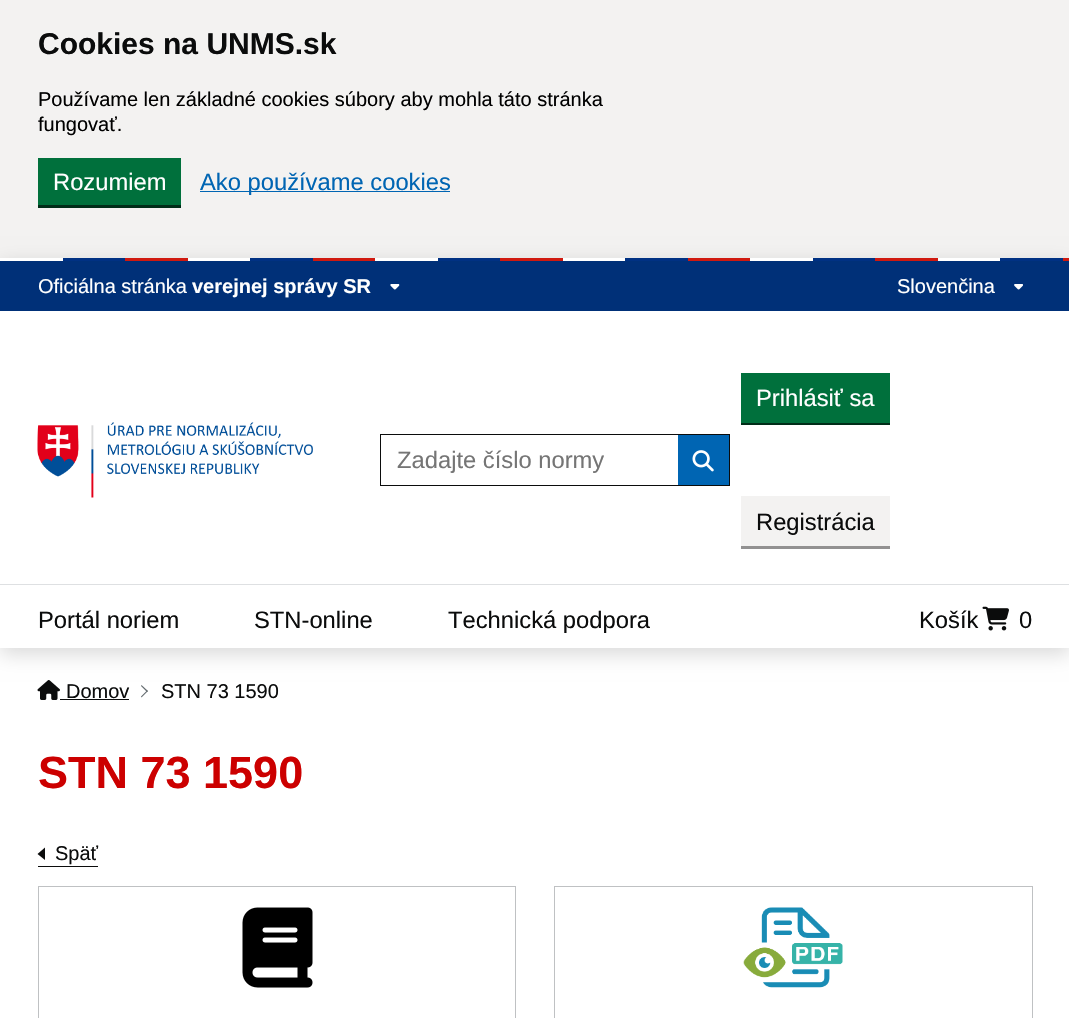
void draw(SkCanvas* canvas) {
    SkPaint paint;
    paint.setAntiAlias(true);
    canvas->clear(0xFFFFFFFF);
    paint.setColor(0xFFF3F2F1);
    canvas->drawRect(SkRect::MakeXYWH(0, 0, 1069, 258), paint);
    SkFont font1(fontMgr->matchFamilyStyle("Liberation Sans", SkFontStyle::Bold()), 30);
    font1.setSubpixel(true);
    paint.setColor(0xFF0B0C0C);
    canvas->drawString("Cookies na UNMS.sk", 38, 54, font1, paint);
    SkFont font2(fontMgr->matchFamilyStyle("Liberation Sans", SkFontStyle::Normal()), 20);
    font2.setSubpixel(true);
    paint.setColor(0xFF000000);
    canvas->drawString("Používame len základné cookies súbory aby mohla táto stránka", 38, 106, font2, paint);
    canvas->drawString("fungovať.", 38, 131, font2, paint);
    paint.setColor(0xFF002D18);
    canvas->drawRect(SkRect::MakeXYWH(38, 205, 143, 3), paint);
    paint.setColor(0xFF00703C);
    canvas->drawRect(SkRect::MakeXYWH(38, 158, 143, 47), paint);
    SkFont font3(fontMgr->matchFamilyStyle("Liberation Sans", SkFontStyle::Normal()), 23.75f);
    font3.setSubpixel(true);
    paint.setColor(0xFFFFFFFF);
    canvas->drawString("Rozumiem", 53, 190, font3, paint);
    paint.setColor(0xFF0065B3);
    canvas->drawRect(SkRect::MakeXYWH(200, 191, 250, 1), paint);
    canvas->drawString("Ako používame cookies", 200, 190, font3, paint);
    canvas->save();
    canvas->clipPath(SkPathBuilder(SkPathFillType::kEvenOdd).moveTo(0, 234).lineTo(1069, 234).lineTo(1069, 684).lineTo(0, 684).close().moveTo(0, 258).lineTo(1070, 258).lineTo(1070, 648).lineTo(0, 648).close().detach(), true);
    paint.setColor(0x26000000);
    paint.setMaskFilter(SkMaskFilter::MakeBlur(kNormal_SkBlurStyle, 9.5f));
    canvas->drawRect(SkRect::MakeXYWH(0, 264, 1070, 390), paint);
    paint.setMaskFilter(nullptr);
    canvas->restore();
    paint.setColor(0xFF003183);
    canvas->drawRect(SkRect::MakeXYWH(63, 258, 62, 3), paint);
    paint.setColor(0xFFD0190F);
    canvas->drawRect(SkRect::MakeXYWH(125, 258, 63, 3), paint);
    paint.setColor(0xFF003183);
    canvas->drawRect(SkRect::MakeXYWH(250, 258, 63, 3), paint);
    paint.setColor(0xFFD0190F);
    canvas->drawRect(SkRect::MakeXYWH(313, 258, 62, 3), paint);
    paint.setColor(0xFF003183);
    canvas->drawRect(SkRect::MakeXYWH(438, 258, 62, 3), paint);
    paint.setColor(0xFFD0190F);
    canvas->drawRect(SkRect::MakeXYWH(500, 258, 63, 3), paint);
    paint.setColor(0xFF003183);
    canvas->drawRect(SkRect::MakeXYWH(625, 258, 63, 3), paint);
    paint.setColor(0xFFD0190F);
    canvas->drawRect(SkRect::MakeXYWH(688, 258, 62, 3), paint);
    paint.setColor(0xFF003183);
    canvas->drawRect(SkRect::MakeXYWH(813, 258, 62, 3), paint);
    paint.setColor(0xFFD0190F);
    canvas->drawRect(SkRect::MakeXYWH(875, 258, 63, 3), paint);
    paint.setColor(0xFF003183);
    canvas->drawRect(SkRect::MakeXYWH(1000, 258, 63, 3), paint);
    paint.setColor(0xFFD0190F);
    canvas->drawRect(SkRect::MakeXYWH(1063, 258, 6, 3), paint);
    paint.setColor(0xFF003078);
    canvas->drawRect(SkRect::MakeXYWH(0, 261, 1069, 50), paint);
    paint.setColor(0xFFFFFFFF);
    canvas->drawString("Oficiálna stránka", 38, 293, font2, paint);
    SkFont font4(fontMgr->matchFamilyStyle("Liberation Sans", SkFontStyle::Bold()), 20);
    font4.setSubpixel(true);
    canvas->drawString("verejnej správy SR", 192, 293, font4, paint);
    canvas->drawImageRect(SkImages::DeferredFromEncodedData(SkData::MakeFromFileName("img1.png")), SkRect::MakeXYWH(390, 284, 10, 6), SkSamplingOptions());
    canvas->drawString("Slovenčina", 897, 293, font2, paint);
    canvas->drawImageRect(SkImages::DeferredFromEncodedData(SkData::MakeFromFileName("img2.png")), SkRect::MakeXYWH(1014, 284, 9, 6), SkSamplingOptions());
    canvas->drawImageRect(SkImages::DeferredFromEncodedData(SkData::MakeFromFileName("img3.png")), SkRect::MakeXYWH(37, 422, 276, 76), SkSamplingOptions());
    paint.setStyle(SkPaint::kStroke_Style);
    paint.setStrokeWidth(1);
    paint.setColor(0xFF0B0C0C);
    canvas->drawRect(SkRect::MakeXYWH(380.5f, 434.5f, 349, 51), paint);
    paint.setStyle(SkPaint::kFill_Style);
    paint.setColor(0xFF757575);
    canvas->drawString("Zadajte číslo normy", 397, 468, font3, paint);
    paint.setColor(0xFF0065B3);
    canvas->drawRect(SkRect::MakeXYWH(678, 435, 51, 50), paint);
    canvas->drawImageRect(SkImages::DeferredFromEncodedData(SkData::MakeFromFileName("img4.png")), SkRect::MakeXYWH(692, 450, 22, 22), SkSamplingOptions());
    paint.setColor(0xFF002D18);
    canvas->drawPath(SkPathBuilder().moveTo(741, 375).lineTo(741, 425).lineTo(890, 425).lineTo(890, 422).lineTo(741, 422).close().detach(), paint);
    paint.setColor(0xFF00703C);
    canvas->drawRect(SkRect::MakeXYWH(741, 373, 149, 50), paint);
    paint.setColor(0xFFFFFFFF);
    canvas->drawString("Prihlásiť sa", 756, 406, font3, paint);
    paint.setColor(0xFF929191);
    canvas->drawPath(SkPathBuilder().moveTo(741, 499).lineTo(741, 549).lineTo(890, 549).lineTo(890, 546).lineTo(741, 546).close().detach(), paint);
    paint.setColor(0xFFF3F2F1);
    canvas->drawRect(SkRect::MakeXYWH(741, 496, 149, 50), paint);
    paint.setColor(0xFF0B0C0C);
    canvas->drawString("Registrácia", 756, 530, font3, paint);
    paint.setColor(0xFFDEE0E2);
    canvas->drawRect(SkRect::MakeXYWH(0, 584, 1069, 1), paint);
    paint.setColor(0xFFFFFFFF);
    canvas->drawRect(SkRect::MakeXYWH(0, 647, 1069, 1), paint);
    paint.setColor(0xFF0B0C0C);
    canvas->drawString("Portál noriem", 38, 628, font3, paint);
    canvas->drawString("STN-online", 254, 628, font3, paint);
    canvas->drawString("Technická podpora", 448, 628, font3, paint);
    canvas->drawString("Košík", 919, 628, font3, paint);
    canvas->drawImageRect(SkImages::DeferredFromEncodedData(SkData::MakeFromFileName("img5.png")), SkRect::MakeXYWH(982, 606, 27, 25), SkSamplingOptions());
    canvas->drawString("0", 1019, 628, font3, paint);
    canvas->drawImageRect(SkImages::DeferredFromEncodedData(SkData::MakeFromFileName("img6.png")), SkRect::MakeXYWH(37, 680, 23, 20), SkSamplingOptions());
    canvas->drawString("Domov", 66, 698, font2, paint);
    canvas->drawRect(SkRect::MakeXYWH(60, 699, 69, 1), paint);
    paint.setColor(0xFF626A6E);
    canvas->drawPath(SkPathBuilder().moveTo(141.5f, 685).lineTo(148, 691).lineTo(147, 692).lineTo(141, 686).close().detach(), paint);
    canvas->drawPath(SkPathBuilder().moveTo(147, 690.5f).lineTo(148, 691).lineTo(141.5f, 697.5f).lineTo(141, 696.5f).close().detach(), paint);
    paint.setColor(0xFF0B0C0C);
    canvas->drawString("STN 73 1590", 161, 698, font2, paint);
    SkFont font5(fontMgr->matchFamilyStyle("Liberation Sans", SkFontStyle::Bold()), 45);
    font5.setSubpixel(true);
    paint.setColor(0xFFCC0000);
    canvas->drawString("STN 73 1590", 38, 788, font5, paint);
    paint.setColor(0xFF0B0C0C);
    canvas->drawRect(SkRect::MakeXYWH(38, 866, 60, 1), paint);
    canvas->drawPath(SkPathBuilder().moveTo(45, 847.5f).lineTo(37.5f, 854).lineTo(45, 860).close().detach(), paint);
    canvas->drawString("Späť", 55, 860, font2, paint);
    paint.setStyle(SkPaint::kStroke_Style);
    paint.setColor(0xFFBFC1C3);
    canvas->drawRect(SkRect::MakeXYWH(38.5f, 886.5f, 477, 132), paint);
    canvas->drawImageRect(SkImages::DeferredFromEncodedData(SkData::MakeFromFileName("img7.png")), SkRect::MakeXYWH(242, 907, 71, 81), SkSamplingOptions());
    canvas->drawRect(SkRect::MakeXYWH(554.5f, 886.5f, 478, 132), paint);
    canvas->drawImageRect(SkImages::DeferredFromEncodedData(SkData::MakeFromFileName("img8.png")), SkRect::MakeXYWH(743, 907, 100, 81), SkSamplingOptions());
}
